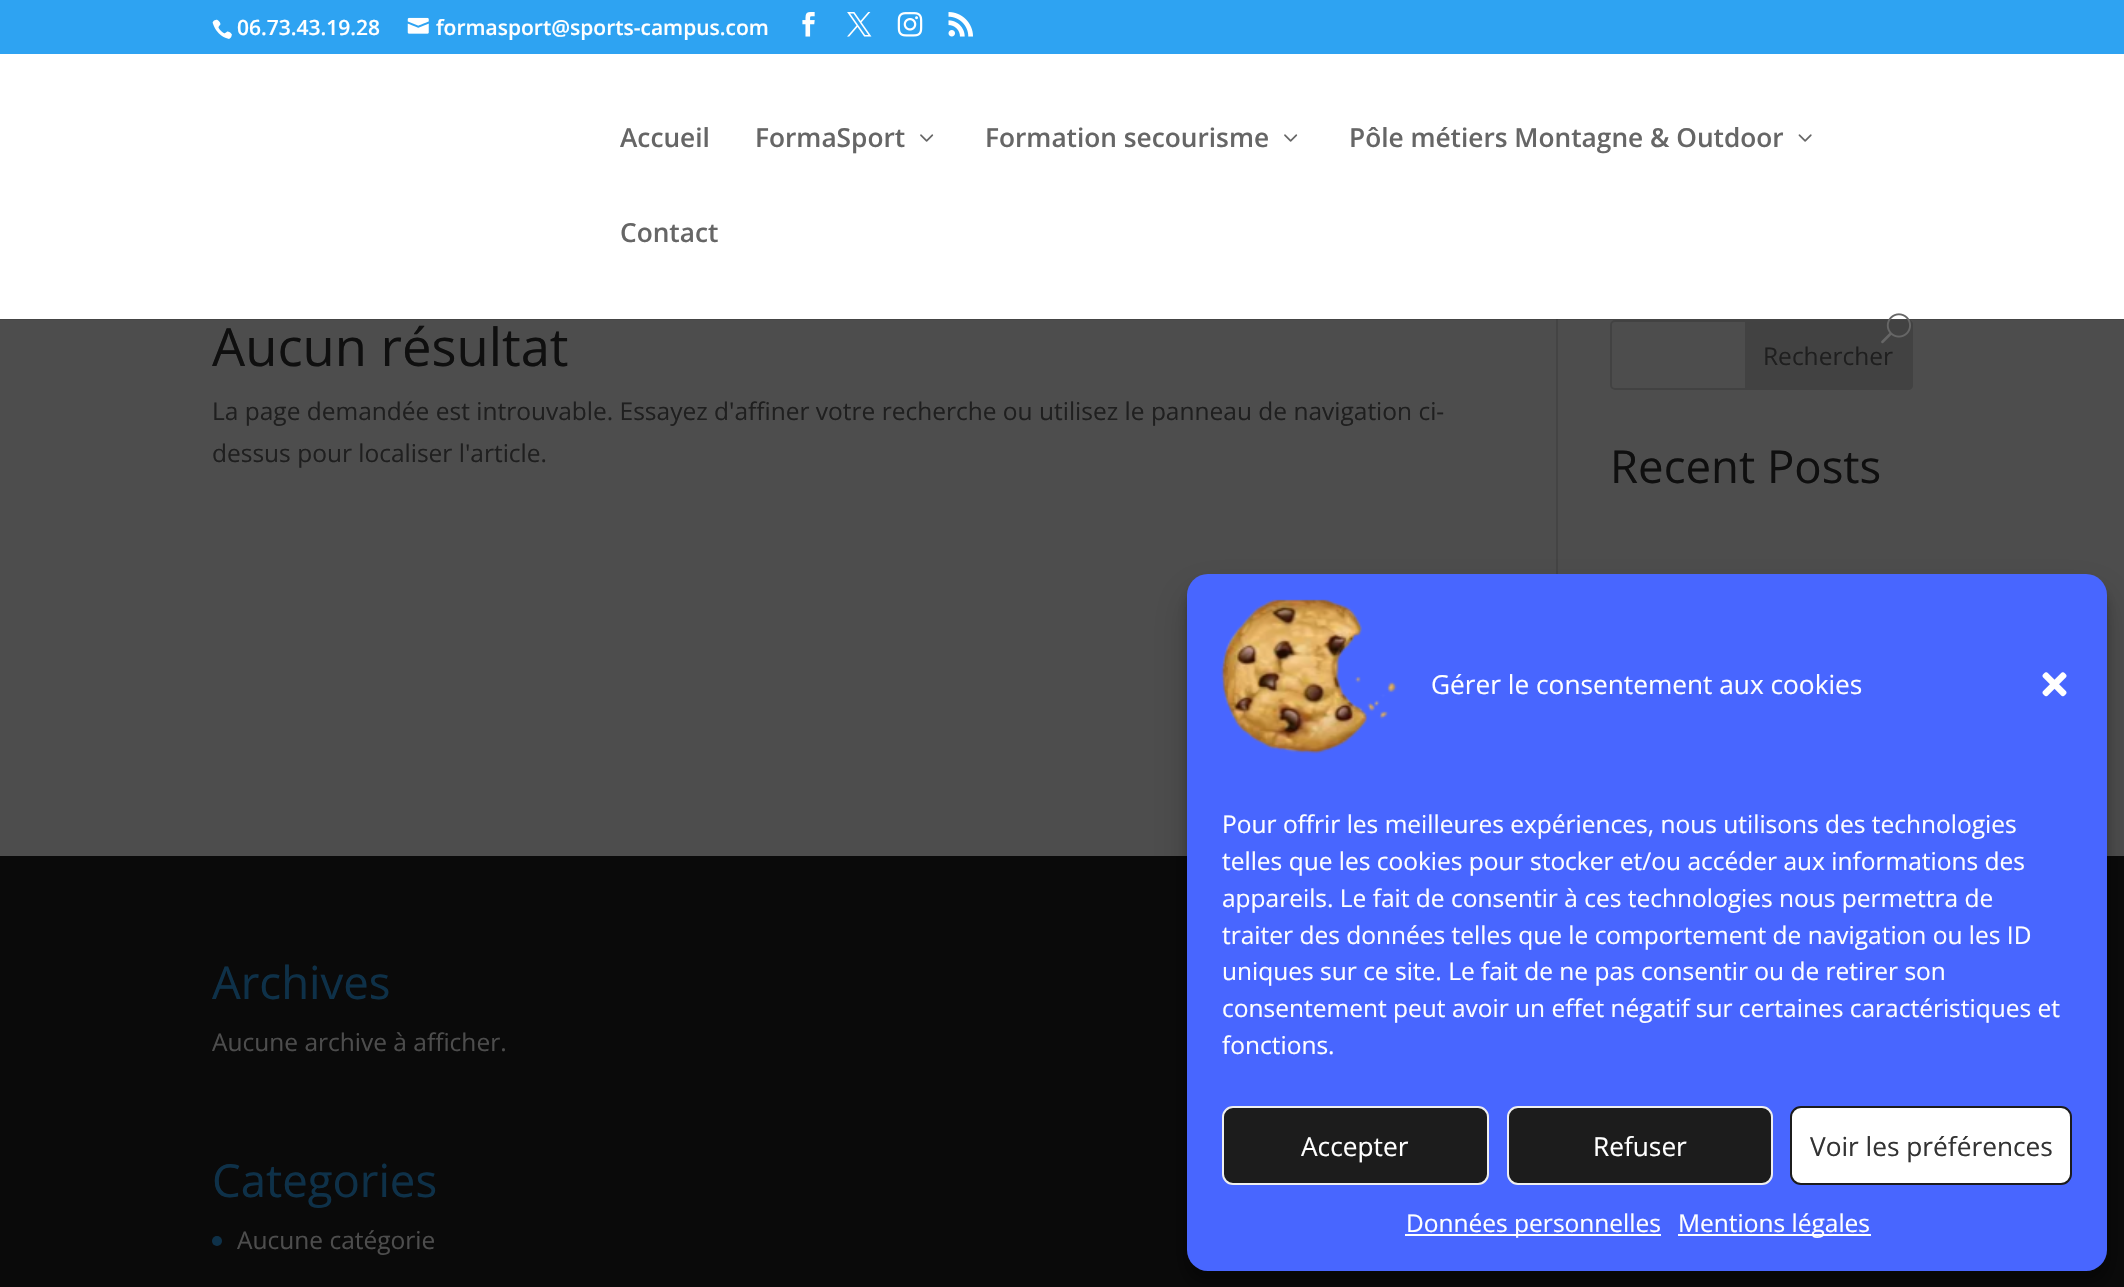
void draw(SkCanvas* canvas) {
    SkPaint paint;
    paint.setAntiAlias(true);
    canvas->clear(0xFF4D4D4D);
    paint.setColor(0xFF2EA3F2);
    canvas->drawRect(SkRect::MakeXYWH(0, 0, 2124, 54), paint);
    canvas->drawImageRect(SkImages::DeferredFromEncodedData(SkData::MakeFromFileName("img1.png")), SkRect::MakeXYWH(212, 19, 20, 20), SkSamplingOptions());
    SkFont font1(fontMgr->matchFamilyStyle("Open Sans", SkFontStyle(600, SkFontStyle::kNormal_Width, SkFontStyle::kUpright_Slant)), 21);
    font1.setSubpixel(true);
    paint.setColor(0xFFFFFFFF);
    canvas->drawString("06.73.43.19.28", 237, 35, font1, paint);
    canvas->drawImageRect(SkImages::DeferredFromEncodedData(SkData::MakeFromFileName("img2.png")), SkRect::MakeXYWH(407, 17, 22, 17), SkSamplingOptions());
    canvas->drawString("formasport@sports-campus.com", 436, 35, font1, paint);
    canvas->drawImageRect(SkImages::DeferredFromEncodedData(SkData::MakeFromFileName("img3.png")), SkRect::MakeXYWH(802, 12, 13, 25), SkSamplingOptions());
    canvas->drawImageRect(SkImages::DeferredFromEncodedData(SkData::MakeFromFileName("img4.png")), SkRect::MakeXYWH(847, 12, 25, 25), SkSamplingOptions());
    canvas->drawImageRect(SkImages::DeferredFromEncodedData(SkData::MakeFromFileName("img5.png")), SkRect::MakeXYWH(897, 12, 26, 25), SkSamplingOptions());
    canvas->drawImageRect(SkImages::DeferredFromEncodedData(SkData::MakeFromFileName("img6.png")), SkRect::MakeXYWH(948, 12, 25, 25), SkSamplingOptions());
    paint.setColor(0xFF444444);
    canvas->drawRect(SkRect::MakeXYWH(1556, 319, 2, 255), paint);
    paint.setColor(0x1A000000);
    canvas->drawPath(SkPathBuilder().moveTo(0, 318).lineTo(0, 320).lineTo(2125, 320).lineTo(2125, 56).lineTo(2124, 56).lineTo(2124, 318).close().detach(), paint);
    paint.setColor(0xFFFFFFFF);
    canvas->drawRect(SkRect::MakeXYWH(0, 54, 2124, 265), paint);
    SkFont font2(fontMgr->matchFamilyStyle("Open Sans", SkFontStyle(600, SkFontStyle::kNormal_Width, SkFontStyle::kUpright_Slant)), 26.25f);
    font2.setSubpixel(true);
    paint.setColor(0xFF666666);
    canvas->drawString("Accueil", 620, 147, font2, paint);
    canvas->drawString("FormaSport", 755, 147, font2, paint);
    canvas->drawImageRect(SkImages::DeferredFromEncodedData(SkData::MakeFromFileName("img7.png")), SkRect::MakeXYWH(920, 134, 14, 8), SkSamplingOptions());
    canvas->drawString("Formation secourisme", 985, 147, font2, paint);
    canvas->drawImageRect(SkImages::DeferredFromEncodedData(SkData::MakeFromFileName("img7.png")), SkRect::MakeXYWH(1284, 134, 14, 8), SkSamplingOptions());
    canvas->drawString("Pôle métiers Montagne & Outdoor", 1349, 147, font2, paint);
    canvas->drawImageRect(SkImages::DeferredFromEncodedData(SkData::MakeFromFileName("img8.png")), SkRect::MakeXYWH(1798, 134, 14, 8), SkSamplingOptions());
    canvas->drawString("Contact", 620, 242, font2, paint);
    paint.setStyle(SkPaint::kStroke_Style);
    paint.setStrokeWidth(2);
    paint.setColor(0xFF424242);
    canvas->drawRoundRect(SkRect::MakeXYWH(1611, 321, 301, 68), 4, 4, paint);
    paint.setStyle(SkPaint::kFill_Style);
    canvas->drawPath(SkPathBuilder().moveTo(1745, 320).lineTo(1908, 320).cubicTo(1911, 320, 1913, 322, 1913, 325).lineTo(1913, 385).cubicTo(1913, 388, 1911, 390, 1908, 390).lineTo(1745, 390).close().detach(), paint);
    canvas->drawImageRect(SkImages::DeferredFromEncodedData(SkData::MakeFromFileName("img9.png")), SkRect::MakeXYWH(1881, 313, 30, 31), SkSamplingOptions());
    SkFont font3(fontMgr->matchFamilyStyle("Open Sans", SkFontStyle::Normal()), 52.5f);
    font3.setSubpixel(true);
    paint.setColor(0xFF0F0F0F);
    canvas->drawString("Aucun résultat", 212, 366, font3, paint);
    SkFont font4(fontMgr->matchFamilyStyle("Open Sans", SkFontStyle::Normal()), 24.5f);
    font4.setSubpixel(true);
    paint.setColor(0xFF1F1F1F);
    canvas->drawString("La page demandée est introuvable. Essayez d'affiner votre recherche ou utilisez le panneau de navigation ci-", 212, 420, font4, paint);
    canvas->drawString("dessus pour localiser l'article.", 212, 462, font4, paint);
    canvas->drawString("Rechercher", 1763, 365, font4, paint);
    SkFont font5(fontMgr->matchFamilyStyle("Open Sans", SkFontStyle::Normal()), 45.5f);
    font5.setSubpixel(true);
    paint.setColor(0xFF0F0F0F);
    canvas->drawString("Recent Posts", 1610, 483, font5, paint);
    paint.setColor(0xFF0A0A0A);
    canvas->drawRect(SkRect::MakeXYWH(0, 856, 2124, 431), paint);
    paint.setColor(0xFF0E3149);
    canvas->drawString("Archives", 212, 999, font5, paint);
    paint.setColor(0xFF4D4D4D);
    canvas->drawString("Aucune archive à afficher.", 212, 1051, font4, paint);
    paint.setColor(0xFF0E3149);
    canvas->drawString("Categories", 212, 1197, font5, paint);
    canvas->drawCircle(217, 1241, 5, paint);
    paint.setColor(0xFF4D4D4D);
    canvas->drawString("Aucune catégorie", 237, 1249, font4, paint);
    paint.setColor(0x3B000000);
    paint.setMaskFilter(SkMaskFilter::MakeBlur(kNormal_SkBlurStyle, 5));
    canvas->drawRoundRect(SkRect::MakeXYWH(1187, 585, 920, 696), 21, 21, paint);
    paint.setMaskFilter(nullptr);
    paint.setColor(0x30000000);
    paint.setMaskFilter(SkMaskFilter::MakeBlur(kNormal_SkBlurStyle, 17.5f));
    canvas->drawRoundRect(SkRect::MakeXYWH(1187, 592, 920, 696), 21, 21, paint);
    paint.setMaskFilter(nullptr);
    paint.setColor(0xFF4866FF);
    canvas->drawRoundRect(SkRect::MakeXYWH(1187, 574, 920, 697), 21, 21, paint);
    canvas->drawImageRect(SkImages::DeferredFromEncodedData(SkData::MakeFromFileName("img10.png")), SkRect::MakeXYWH(1221, 599, 176, 155), SkSamplingOptions());
    SkFont font6(fontMgr->matchFamilyStyle("Open Sans", SkFontStyle::Normal()), 26.25f);
    font6.setSubpixel(true);
    paint.setColor(0xFFFFFFFF);
    canvas->drawString("Gérer le consentement aux cookies", 1431, 694, font6, paint);
    canvas->drawImageRect(SkImages::DeferredFromEncodedData(SkData::MakeFromFileName("img11.png")), SkRect::MakeXYWH(2042, 672, 25, 25), SkSamplingOptions());
    canvas->drawString("Pour offrir les meilleures expériences, nous utilisons des technologies", 1222, 833, font4, paint);
    canvas->drawString("telles que les cookies pour stocker et/ou accéder aux informations des", 1222, 870, font4, paint);
    canvas->drawString("appareils. Le fait de consentir à ces technologies nous permettra de", 1222, 907, font4, paint);
    canvas->drawString("traiter des données telles que le comportement de navigation ou les ID", 1222, 944, font4, paint);
    canvas->drawString("uniques sur ce site. Le fait de ne pas consentir ou de retirer son", 1222, 980, font4, paint);
    canvas->drawString("consentement peut avoir un effet négatif sur certaines caractéristiques et", 1222, 1017, font4, paint);
    canvas->drawString("fonctions.", 1222, 1054, font4, paint);
    paint.setColor(0xFF1C1C1C);
    canvas->drawRoundRect(SkRect::MakeXYWH(1223, 1107, 265, 77), 10, 10, paint);
    paint.setStyle(SkPaint::kStroke_Style);
    paint.setColor(0xFFEFEFEF);
    canvas->drawRoundRect(SkRect::MakeXYWH(1223, 1107, 265, 77), 10, 10, paint);
    paint.setStyle(SkPaint::kFill_Style);
    paint.setColor(0xFFFFFFFF);
    canvas->drawString("Accepter", 1301, 1156, font6, paint);
    paint.setColor(0xFF1C1C1C);
    canvas->drawRoundRect(SkRect::MakeXYWH(1508, 1107, 264, 77), 10, 10, paint);
    paint.setStyle(SkPaint::kStroke_Style);
    paint.setColor(0xFFEFEFEF);
    canvas->drawRoundRect(SkRect::MakeXYWH(1508, 1107, 264, 77), 10, 10, paint);
    paint.setStyle(SkPaint::kFill_Style);
    paint.setColor(0xFFFFFFFF);
    canvas->drawString("Refuser", 1593, 1156, font6, paint);
    canvas->drawRoundRect(SkRect::MakeXYWH(1791, 1107, 280, 77), 10, 10, paint);
    paint.setStyle(SkPaint::kStroke_Style);
    paint.setColor(0xFF1C1C1C);
    canvas->drawRoundRect(SkRect::MakeXYWH(1791, 1107, 280, 77), 10, 10, paint);
    paint.setStyle(SkPaint::kFill_Style);
    paint.setColor(0xFF333333);
    canvas->drawString("Voir les préférences", 1810, 1156, font6, paint);
    paint.setColor(0xFFFFFFFF);
    canvas->drawRect(SkRect::MakeXYWH(1405, 1234, 256, 2), paint);
    canvas->drawString("Données personnelles", 1406, 1232, font4, paint);
    canvas->drawRect(SkRect::MakeXYWH(1678, 1234, 193, 2), paint);
    canvas->drawString("Mentions légales", 1678, 1232, font4, paint);
}
